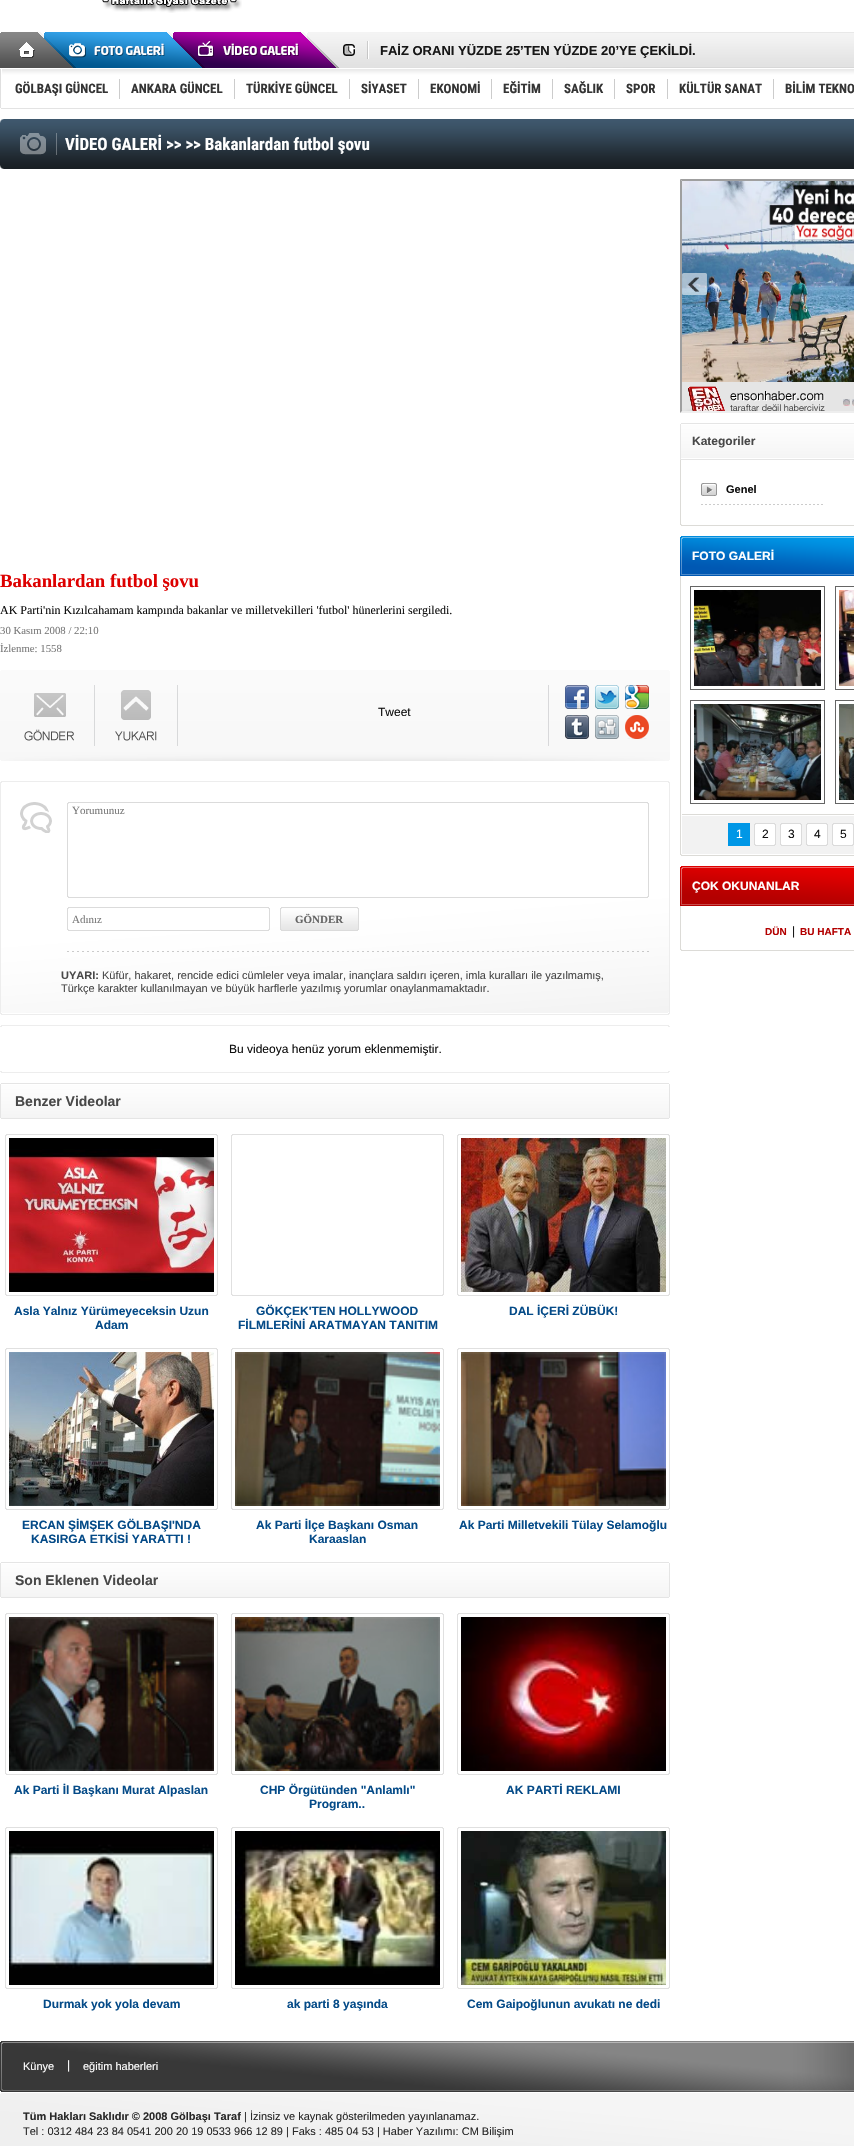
void draw(SkCanvas* canvas) {
    SkPaint paint;
    paint.setAntiAlias(true);
    canvas->clear(0xFFFFFFFF);
    canvas->drawImageRect(SkImages::DeferredFromEncodedData(SkData::MakeFromFileName("img1.png")), SkRect::MakeXYWH(0, 32, 854, 77), SkSamplingOptions());
    canvas->drawImageRect(SkImages::DeferredFromEncodedData(SkData::MakeFromFileName("img2.png")), SkRect::MakeXYWH(102, 0, 140, 13), SkSamplingOptions());
    SkFont font1(fontMgr->matchFamilyStyle("Liberation Sans", SkFontStyle::Bold()), 13);
    font1.setSubpixel(true);
    paint.setColor(0xFF171717);
    canvas->drawString("FAİZ ORANI YÜZDE 25’TEN YÜZDE 20’YE ÇEKİLDİ.", 380, 55, font1, paint);
    SkFont font2(fontMgr->matchFamilyStyle("Roboto Condensed", SkFontStyle::Bold()), 13);
    font2.setSubpixel(true);
    paint.setColor(0xFF343434);
    canvas->drawString("GÖLBAŞI GÜNCEL", 15, 93, font2, paint);
    paint.setColor(0xFFCCCCCC);
    canvas->drawRect(SkRect::MakeXYWH(119, 79, 1, 20), paint);
    paint.setColor(0xFF343434);
    canvas->drawString("ANKARA GÜNCEL", 131, 93, font2, paint);
    paint.setColor(0xFFCCCCCC);
    canvas->drawRect(SkRect::MakeXYWH(234, 79, 1, 20), paint);
    paint.setColor(0xFF343434);
    canvas->drawString("TÜRKİYE GÜNCEL", 246, 93, font2, paint);
    paint.setColor(0xFFCCCCCC);
    canvas->drawRect(SkRect::MakeXYWH(349, 79, 1, 20), paint);
    paint.setColor(0xFF343434);
    canvas->drawString("SİYASET", 361, 93, font2, paint);
    paint.setColor(0xFFCCCCCC);
    canvas->drawRect(SkRect::MakeXYWH(418, 79, 1, 20), paint);
    paint.setColor(0xFF343434);
    canvas->drawString("EKONOMİ", 430, 93, font2, paint);
    paint.setColor(0xFFCCCCCC);
    canvas->drawRect(SkRect::MakeXYWH(491, 79, 1, 20), paint);
    paint.setColor(0xFF343434);
    canvas->drawString("EĞİTİM", 503, 93, font2, paint);
    paint.setColor(0xFFCCCCCC);
    canvas->drawRect(SkRect::MakeXYWH(552, 79, 1, 20), paint);
    paint.setColor(0xFF343434);
    canvas->drawString("SAĞLIK", 564, 93, font2, paint);
    paint.setColor(0xFFCCCCCC);
    canvas->drawRect(SkRect::MakeXYWH(614, 79, 1, 20), paint);
    paint.setColor(0xFF343434);
    canvas->drawString("SPOR", 626, 93, font2, paint);
    paint.setColor(0xFFCCCCCC);
    canvas->drawRect(SkRect::MakeXYWH(667, 79, 1, 20), paint);
    paint.setColor(0xFF343434);
    canvas->drawString("KÜLTÜR SANAT", 679, 93, font2, paint);
    paint.setColor(0xFFCCCCCC);
    canvas->drawRect(SkRect::MakeXYWH(773, 79, 1, 20), paint);
    paint.setColor(0xFF343434);
    canvas->drawString("BİLİM TEKNO", 785, 93, font2, paint);
    canvas->drawImageRect(SkImages::DeferredFromEncodedData(SkData::MakeFromFileName("img3.png")), SkRect::MakeXYWH(0, 119, 854, 50), SkSamplingOptions());
    SkFont font3(fontMgr->matchFamilyStyle("Roboto Condensed", SkFontStyle::Bold()), 17);
    font3.setSubpixel(true);
    paint.setColor(0xFFFFFFFF);
    canvas->drawString("VİDEO GALERİ >> >> Bakanlardan futbol şovu", 65, 150, font3, paint);
    SkFont font4(fontMgr->matchFamilyStyle("Liberation Serif", SkFontStyle::Bold()), 18.75f);
    font4.setSubpixel(true);
    paint.setColor(0xFFDD0000);
    canvas->drawString("Bakanlardan futbol şovu", 0, 587, font4, paint);
    SkFont font5(fontMgr->matchFamilyStyle("Liberation Serif", SkFontStyle::Normal()), 12);
    font5.setSubpixel(true);
    paint.setColor(0xFF0F0F0F);
    canvas->drawString("AK Parti'nin Kızılcahamam kampında bakanlar ve milletvekilleri 'futbol' hünerlerini sergiledi.", 0, 614, font5, paint);
    SkFont font6(fontMgr->matchFamilyStyle("Liberation Serif", SkFontStyle::Normal()), 10.75f);
    font6.setSubpixel(true);
    paint.setColor(0xFF797979);
    canvas->drawString("30 Kasım 2008 / 22:10", 0, 634, font6, paint);
    canvas->drawString("İzlenme: 1558", 0, 652, font6, paint);
    canvas->drawImageRect(SkImages::DeferredFromEncodedData(SkData::MakeFromFileName("img4.png")), SkRect::MakeXYWH(0, 670, 670, 91), SkSamplingOptions());
    canvas->drawImageRect(SkImages::DeferredFromEncodedData(SkData::MakeFromFileName("img5.png")), SkRect::MakeXYWH(24, 685, 71, 61), SkSamplingOptions());
    canvas->drawImageRect(SkImages::DeferredFromEncodedData(SkData::MakeFromFileName("img6.png")), SkRect::MakeXYWH(115, 685, 63, 61), SkSamplingOptions());
    SkFont font7(fontMgr->matchFamilyStyle("Liberation Sans", SkFontStyle::Normal()), 12);
    font7.setSubpixel(true);
    paint.setColor(0xFF0F0F0F);
    canvas->drawString("Tweet", 378, 716, font7, paint);
    paint.setColor(0xFFD8D8DA);
    canvas->drawRect(SkRect::MakeXYWH(548, 685, 1, 61), paint);
    canvas->drawImageRect(SkImages::DeferredFromEncodedData(SkData::MakeFromFileName("img7.png")), SkRect::MakeXYWH(565, 685, 24, 24), SkSamplingOptions());
    canvas->drawImageRect(SkImages::DeferredFromEncodedData(SkData::MakeFromFileName("img8.png")), SkRect::MakeXYWH(595, 685, 24, 24), SkSamplingOptions());
    canvas->drawImageRect(SkImages::DeferredFromEncodedData(SkData::MakeFromFileName("img9.png")), SkRect::MakeXYWH(625, 685, 24, 24), SkSamplingOptions());
    canvas->drawImageRect(SkImages::DeferredFromEncodedData(SkData::MakeFromFileName("img10.png")), SkRect::MakeXYWH(565, 715, 24, 24), SkSamplingOptions());
    canvas->drawImageRect(SkImages::DeferredFromEncodedData(SkData::MakeFromFileName("img11.png")), SkRect::MakeXYWH(595, 715, 24, 24), SkSamplingOptions());
    canvas->drawImageRect(SkImages::DeferredFromEncodedData(SkData::MakeFromFileName("img12.png")), SkRect::MakeXYWH(625, 715, 24, 24), SkSamplingOptions());
    canvas->drawImageRect(SkImages::DeferredFromEncodedData(SkData::MakeFromFileName("img13.png")), SkRect::MakeXYWH(0, 781, 670, 234), SkSamplingOptions());
    SkFont font8(fontMgr->matchFamilyStyle("Liberation Serif", SkFontStyle::Normal()), 11);
    font8.setSubpixel(true);
    paint.setColor(0xFF797979);
    canvas->drawString("Yorumunuz", 72, 814, font8, paint);
    canvas->drawString("Adınız", 72, 923, font8, paint);
    SkFont font9(fontMgr->matchFamilyStyle("Liberation Serif", SkFontStyle::Bold()), 11);
    font9.setSubpixel(true);
    paint.setColor(0xFF666666);
    canvas->drawString("GÖNDER", 295, 923, font9, paint);
    SkFont font10(fontMgr->matchFamilyStyle("Liberation Sans", SkFontStyle::Bold()), 11);
    font10.setSubpixel(true);
    paint.setColor(0xFF484848);
    canvas->drawString("UYARI:", 61, 979, font10, paint);
    SkFont font11(fontMgr->matchFamilyStyle("Liberation Sans", SkFontStyle::Normal()), 11);
    font11.setSubpixel(true);
    canvas->drawString("Küfür, hakaret, rencide edici cümleler veya imalar, inançlara saldırı içeren, imla kuralları ile yazılmamış,", 102, 979, font11, paint);
    canvas->drawString("Türkçe karakter kullanılmayan ve büyük harflerle yazılmış yorumlar onaylanmamaktadır.", 61, 992, font11, paint);
    canvas->drawImageRect(SkImages::DeferredFromEncodedData(SkData::MakeFromFileName("img14.png")), SkRect::MakeXYWH(0, 1025, 670, 2), SkSamplingOptions());
    paint.setColor(0xFF0F0F0F);
    canvas->drawString("Bu videoya henüz yorum eklenmemiştir.", 229, 1053, font7, paint);
    canvas->drawImageRect(SkImages::DeferredFromEncodedData(SkData::MakeFromFileName("img15.png")), SkRect::MakeXYWH(0, 1071, 670, 2), SkSamplingOptions());
    canvas->drawImageRect(SkImages::DeferredFromEncodedData(SkData::MakeFromFileName("img16.png")), SkRect::MakeXYWH(0, 1083, 670, 36), SkSamplingOptions());
    SkFont font12(fontMgr->matchFamilyStyle("Liberation Sans", SkFontStyle::Bold()), 14);
    font12.setSubpixel(true);
    paint.setColor(0xFF484848);
    canvas->drawString("Benzer Videolar", 15, 1106, font12, paint);
    canvas->drawImageRect(SkImages::DeferredFromEncodedData(SkData::MakeFromFileName("img17.png")), SkRect::MakeXYWH(5, 1134, 213, 162), SkSamplingOptions());
    canvas->drawImageRect(SkImages::DeferredFromEncodedData(SkData::MakeFromFileName("img18.png")), SkRect::MakeXYWH(9, 1138, 205, 154), SkSamplingOptions());
    SkFont font13(fontMgr->matchFamilyStyle("Liberation Sans", SkFontStyle::Bold()), 12);
    font13.setSubpixel(true);
    paint.setColor(0xFF054B88);
    canvas->drawString("Asla Yalnız Yürümeyeceksin Uzun", 14, 1315, font13, paint);
    canvas->drawString("Adam", 95, 1329, font13, paint);
    canvas->drawImageRect(SkImages::DeferredFromEncodedData(SkData::MakeFromFileName("img17.png")), SkRect::MakeXYWH(231, 1134, 213, 162), SkSamplingOptions());
    canvas->drawString("GÖKÇEK'TEN HOLLYWOOD", 256, 1315, font13, paint);
    canvas->drawString("FİLMLERİNİ ARATMAYAN TANITIM", 238, 1329, font13, paint);
    canvas->drawImageRect(SkImages::DeferredFromEncodedData(SkData::MakeFromFileName("img17.png")), SkRect::MakeXYWH(457, 1134, 213, 162), SkSamplingOptions());
    canvas->drawImageRect(SkImages::DeferredFromEncodedData(SkData::MakeFromFileName("img19.png")), SkRect::MakeXYWH(461, 1138, 205, 154), SkSamplingOptions());
    canvas->drawString("DAL İÇERİ ZÜBÜK!", 509, 1315, font13, paint);
    canvas->drawImageRect(SkImages::DeferredFromEncodedData(SkData::MakeFromFileName("img17.png")), SkRect::MakeXYWH(5, 1348, 213, 162), SkSamplingOptions());
    canvas->drawImageRect(SkImages::DeferredFromEncodedData(SkData::MakeFromFileName("img20.png")), SkRect::MakeXYWH(9, 1352, 205, 154), SkSamplingOptions());
    canvas->drawString("ERCAN ŞİMŞEK GÖLBAŞI'NDA", 22, 1529, font13, paint);
    canvas->drawString("KASIRGA ETKİSİ YARATTI !", 31, 1543, font13, paint);
    canvas->drawImageRect(SkImages::DeferredFromEncodedData(SkData::MakeFromFileName("img17.png")), SkRect::MakeXYWH(231, 1348, 213, 162), SkSamplingOptions());
    canvas->drawImageRect(SkImages::DeferredFromEncodedData(SkData::MakeFromFileName("img21.png")), SkRect::MakeXYWH(235, 1352, 205, 154), SkSamplingOptions());
    canvas->drawString("Ak Parti İlçe Başkanı Osman", 256, 1529, font13, paint);
    canvas->drawString("Karaaslan", 309, 1543, font13, paint);
    canvas->drawImageRect(SkImages::DeferredFromEncodedData(SkData::MakeFromFileName("img17.png")), SkRect::MakeXYWH(457, 1348, 213, 162), SkSamplingOptions());
    canvas->drawImageRect(SkImages::DeferredFromEncodedData(SkData::MakeFromFileName("img22.png")), SkRect::MakeXYWH(461, 1352, 205, 154), SkSamplingOptions());
    canvas->drawString("Ak Parti Milletvekili Tülay Selamoğlu", 459, 1529, font13, paint);
    canvas->drawImageRect(SkImages::DeferredFromEncodedData(SkData::MakeFromFileName("img16.png")), SkRect::MakeXYWH(0, 1562, 670, 36), SkSamplingOptions());
    paint.setColor(0xFF484848);
    canvas->drawString("Son Eklenen Videolar", 15, 1585, font12, paint);
    canvas->drawImageRect(SkImages::DeferredFromEncodedData(SkData::MakeFromFileName("img17.png")), SkRect::MakeXYWH(5, 1613, 213, 162), SkSamplingOptions());
    canvas->drawImageRect(SkImages::DeferredFromEncodedData(SkData::MakeFromFileName("img23.png")), SkRect::MakeXYWH(9, 1617, 205, 154), SkSamplingOptions());
    paint.setColor(0xFF054B88);
    canvas->drawString("Ak Parti İl Başkanı Murat Alpaslan", 14, 1794, font13, paint);
    canvas->drawImageRect(SkImages::DeferredFromEncodedData(SkData::MakeFromFileName("img17.png")), SkRect::MakeXYWH(231, 1613, 213, 162), SkSamplingOptions());
    canvas->drawImageRect(SkImages::DeferredFromEncodedData(SkData::MakeFromFileName("img24.png")), SkRect::MakeXYWH(235, 1617, 205, 154), SkSamplingOptions());
    canvas->drawString("CHP Örgütünden \"Anlamlı\"", 260, 1794, font13, paint);
    canvas->drawString("Program..", 309, 1808, font13, paint);
    canvas->drawImageRect(SkImages::DeferredFromEncodedData(SkData::MakeFromFileName("img17.png")), SkRect::MakeXYWH(457, 1613, 213, 162), SkSamplingOptions());
    canvas->drawImageRect(SkImages::DeferredFromEncodedData(SkData::MakeFromFileName("img25.png")), SkRect::MakeXYWH(461, 1617, 205, 154), SkSamplingOptions());
    canvas->drawString("AK PARTİ REKLAMI", 506, 1794, font13, paint);
    canvas->drawImageRect(SkImages::DeferredFromEncodedData(SkData::MakeFromFileName("img17.png")), SkRect::MakeXYWH(5, 1827, 213, 162), SkSamplingOptions());
    canvas->drawImageRect(SkImages::DeferredFromEncodedData(SkData::MakeFromFileName("img26.png")), SkRect::MakeXYWH(9, 1831, 205, 154), SkSamplingOptions());
    canvas->drawString("Durmak yok yola devam", 43, 2008, font13, paint);
    canvas->drawImageRect(SkImages::DeferredFromEncodedData(SkData::MakeFromFileName("img17.png")), SkRect::MakeXYWH(231, 1827, 213, 162), SkSamplingOptions());
    canvas->drawImageRect(SkImages::DeferredFromEncodedData(SkData::MakeFromFileName("img27.png")), SkRect::MakeXYWH(235, 1831, 205, 154), SkSamplingOptions());
    canvas->drawString("ak parti 8 yaşında", 287, 2008, font13, paint);
    canvas->drawImageRect(SkImages::DeferredFromEncodedData(SkData::MakeFromFileName("img17.png")), SkRect::MakeXYWH(457, 1827, 213, 162), SkSamplingOptions());
    canvas->drawImageRect(SkImages::DeferredFromEncodedData(SkData::MakeFromFileName("img28.png")), SkRect::MakeXYWH(461, 1831, 205, 154), SkSamplingOptions());
    canvas->drawString("Cem Gaipoğlunun avukatı ne dedi", 467, 2008, font13, paint);
    paint.setColor(0xFF9F9F9F);
    canvas->drawPath(SkPathBuilder().moveTo(680, 179).lineTo(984, 179).lineTo(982, 181).lineTo(682, 181).close().detach(), paint);
    paint.setColor(0xFFEEEEEE);
    canvas->drawPath(SkPathBuilder().moveTo(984, 413).lineTo(680, 413).lineTo(682, 411).lineTo(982, 411).close().detach(), paint);
    paint.setColor(0xFF9F9F9F);
    canvas->drawPath(SkPathBuilder().moveTo(680, 413).lineTo(680, 179).lineTo(682, 181).lineTo(682, 411).close().detach(), paint);
    canvas->drawImageRect(SkImages::DeferredFromEncodedData(SkData::MakeFromFileName("img29.png")), SkRect::MakeXYWH(682, 181, 172, 230), SkSamplingOptions());
    canvas->drawImageRect(SkImages::DeferredFromEncodedData(SkData::MakeFromFileName("img30.png")), SkRect::MakeXYWH(680, 423, 174, 37), SkSamplingOptions());
    paint.setColor(0xFF484848);
    canvas->drawString("Kategoriler", 692, 445, font13, paint);
    paint.setColor(0xFFDCDBD7);
    canvas->drawRect(SkRect::MakeXYWH(680, 460, 1, 64), paint);
    canvas->drawImageRect(SkImages::DeferredFromEncodedData(SkData::MakeFromFileName("img31.png")), SkRect::MakeXYWH(701, 483, 122, 22), SkSamplingOptions());
    paint.setColor(0xFF0F0F0F);
    canvas->drawString("Genel", 726, 493, font10, paint);
    canvas->drawImageRect(SkImages::DeferredFromEncodedData(SkData::MakeFromFileName("img32.png")), SkRect::MakeXYWH(680, 524, 174, 2), SkSamplingOptions());
    canvas->drawImageRect(SkImages::DeferredFromEncodedData(SkData::MakeFromFileName("img33.png")), SkRect::MakeXYWH(680, 536, 174, 40), SkSamplingOptions());
    paint.setColor(0xFFFFFFFF);
    canvas->drawString("FOTO GALERİ", 692, 560, font13, paint);
    paint.setColor(0xFFDCDBD7);
    canvas->drawRect(SkRect::MakeXYWH(680, 576, 1, 278), paint);
    paint.setStyle(SkPaint::kStroke_Style);
    paint.setStrokeWidth(1);
    paint.setColor(0xFF656565);
    canvas->drawRect(SkRect::MakeXYWH(690.5f, 586.5f, 134, 103), paint);
    canvas->drawImageRect(SkImages::DeferredFromEncodedData(SkData::MakeFromFileName("img34.png")), SkRect::MakeXYWH(694, 590, 127, 96), SkSamplingOptions());
    canvas->drawRect(SkRect::MakeXYWH(835.5f, 586.5f, 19, 103), paint);
    canvas->drawImageRect(SkImages::DeferredFromEncodedData(SkData::MakeFromFileName("img35.png")), SkRect::MakeXYWH(839, 590, 15, 96), SkSamplingOptions());
    canvas->drawRect(SkRect::MakeXYWH(690.5f, 700.5f, 134, 103), paint);
    canvas->drawImageRect(SkImages::DeferredFromEncodedData(SkData::MakeFromFileName("img36.png")), SkRect::MakeXYWH(694, 704, 127, 96), SkSamplingOptions());
    canvas->drawRect(SkRect::MakeXYWH(835.5f, 700.5f, 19, 103), paint);
    canvas->drawImageRect(SkImages::DeferredFromEncodedData(SkData::MakeFromFileName("img37.png")), SkRect::MakeXYWH(839, 704, 15, 96), SkSamplingOptions());
    canvas->drawImageRect(SkImages::DeferredFromEncodedData(SkData::MakeFromFileName("img38.png")), SkRect::MakeXYWH(682, 814, 172, 40), SkSamplingOptions());
    paint.setStyle(SkPaint::kFill_Style);
    paint.setColor(0xFF0097E6);
    canvas->drawRect(SkRect::MakeXYWH(728, 823, 22, 23), paint);
    paint.setColor(0xFFFFFFFF);
    canvas->drawString("1", 736, 838, font7, paint);
    canvas->drawImageRect(SkImages::DeferredFromEncodedData(SkData::MakeFromFileName("img39.png")), SkRect::MakeXYWH(754, 823, 22, 23), SkSamplingOptions());
    paint.setColor(0xFF0F0F0F);
    canvas->drawString("2", 762, 838, font7, paint);
    canvas->drawImageRect(SkImages::DeferredFromEncodedData(SkData::MakeFromFileName("img39.png")), SkRect::MakeXYWH(780, 823, 22, 23), SkSamplingOptions());
    canvas->drawString("3", 788, 838, font7, paint);
    canvas->drawImageRect(SkImages::DeferredFromEncodedData(SkData::MakeFromFileName("img39.png")), SkRect::MakeXYWH(806, 823, 22, 23), SkSamplingOptions());
    canvas->drawString("4", 814, 838, font7, paint);
    canvas->drawImageRect(SkImages::DeferredFromEncodedData(SkData::MakeFromFileName("img39.png")), SkRect::MakeXYWH(832, 823, 22, 23), SkSamplingOptions());
    canvas->drawString("5", 840, 838, font7, paint);
    canvas->drawImageRect(SkImages::DeferredFromEncodedData(SkData::MakeFromFileName("img32.png")), SkRect::MakeXYWH(680, 854, 174, 2), SkSamplingOptions());
    canvas->drawImageRect(SkImages::DeferredFromEncodedData(SkData::MakeFromFileName("img40.png")), SkRect::MakeXYWH(680, 866, 174, 40), SkSamplingOptions());
    paint.setColor(0xFFFFFFFF);
    canvas->drawString("ÇOK OKUNANLAR", 692, 890, font13, paint);
    paint.setColor(0xFFDCDBD7);
    canvas->drawRect(SkRect::MakeXYWH(680, 906, 1, 43), paint);
    SkFont font14(fontMgr->matchFamilyStyle("Liberation Sans", SkFontStyle::Bold()), 10);
    font14.setSubpixel(true);
    paint.setColor(0xFFB30000);
    canvas->drawString("DÜN", 765, 935, font14, paint);
    paint.setColor(0xFF0F0F0F);
    canvas->drawString("|", 792, 935, font7, paint);
    paint.setColor(0xFFB30000);
    canvas->drawString("BU HAFTA", 800, 935, font14, paint);
    canvas->drawImageRect(SkImages::DeferredFromEncodedData(SkData::MakeFromFileName("img32.png")), SkRect::MakeXYWH(680, 949, 174, 2), SkSamplingOptions());
    canvas->drawImageRect(SkImages::DeferredFromEncodedData(SkData::MakeFromFileName("img41.png")), SkRect::MakeXYWH(0, 2041, 854, 105), SkSamplingOptions());
    paint.setColor(0xFFFFFFFF);
    canvas->drawString("Künye", 23, 2070, font11, paint);
    canvas->drawString("|", 67, 2069, font7, paint);
    canvas->drawString("eğitim haberleri", 83, 2070, font11, paint);
    paint.setColor(0xFF282828);
    canvas->drawString("Tüm Hakları Saklıdır © 2008 Gölbaşı Taraf", 23, 2120, font10, paint);
    canvas->drawString("| İzinsiz ve kaynak gösterilmeden yayınlanamaz.", 244, 2120, font11, paint);
    canvas->drawString("Tel : 0312 484 23 84 0541 200 20 19 0533 966 12 89 | Faks : 485 04 53 | Haber Yazılımı: CM Bilişim", 23, 2135, font11, paint);
}
